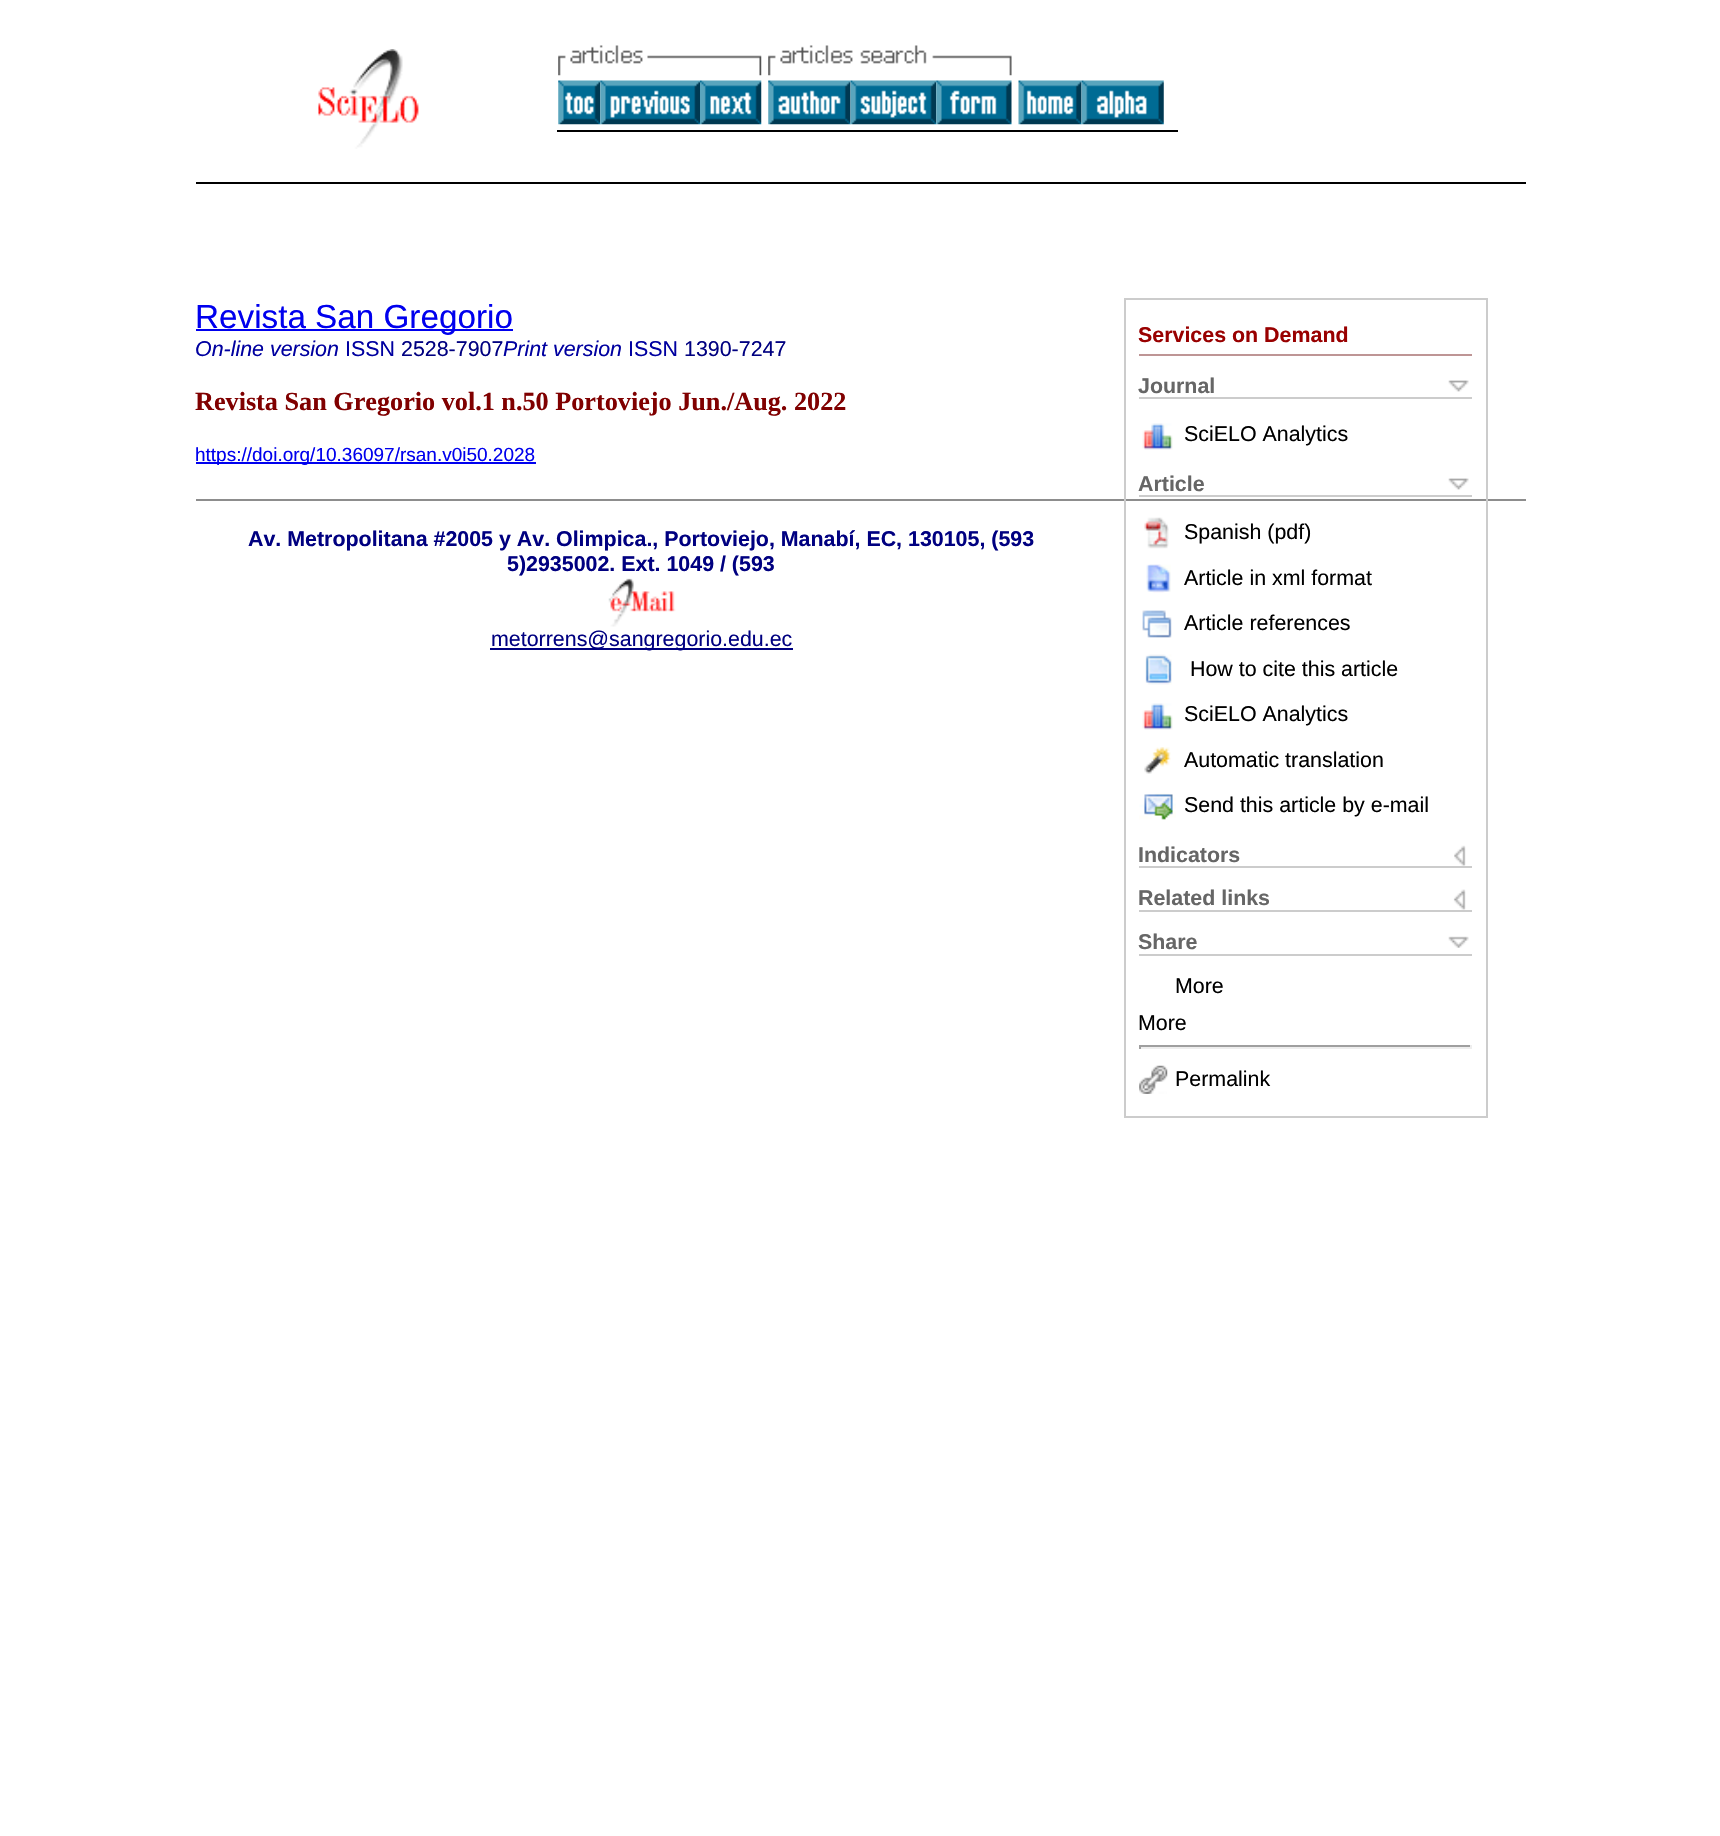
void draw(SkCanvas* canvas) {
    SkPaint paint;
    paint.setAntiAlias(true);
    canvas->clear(0xFFFFFFFF);
    paint.setColor(0xFF000000);
    canvas->drawRect(SkRect::MakeXYWH(196, 182, 1330, 2), paint);
    canvas->drawImageRect(SkImages::DeferredFromEncodedData(SkData::MakeFromFileName("img1.png")), SkRect::MakeXYWH(318, 49, 101, 100), SkSamplingOptions());
    canvas->drawRect(SkRect::MakeXYWH(557, 130, 621, 2), paint);
    canvas->drawImageRect(SkImages::DeferredFromEncodedData(SkData::MakeFromFileName("img2.png")), SkRect::MakeXYWH(558, 45, 204, 31), SkSamplingOptions());
    canvas->drawImageRect(SkImages::DeferredFromEncodedData(SkData::MakeFromFileName("img3.png")), SkRect::MakeXYWH(768, 45, 244, 31), SkSamplingOptions());
    canvas->drawImageRect(SkImages::DeferredFromEncodedData(SkData::MakeFromFileName("img4.png")), SkRect::MakeXYWH(558, 80, 43, 45), SkSamplingOptions());
    canvas->drawImageRect(SkImages::DeferredFromEncodedData(SkData::MakeFromFileName("img5.png")), SkRect::MakeXYWH(600, 80, 100, 45), SkSamplingOptions());
    canvas->drawImageRect(SkImages::DeferredFromEncodedData(SkData::MakeFromFileName("img6.png")), SkRect::MakeXYWH(700, 80, 62, 45), SkSamplingOptions());
    canvas->drawImageRect(SkImages::DeferredFromEncodedData(SkData::MakeFromFileName("img7.png")), SkRect::MakeXYWH(768, 80, 83, 45), SkSamplingOptions());
    canvas->drawImageRect(SkImages::DeferredFromEncodedData(SkData::MakeFromFileName("img8.png")), SkRect::MakeXYWH(850, 80, 87, 45), SkSamplingOptions());
    canvas->drawImageRect(SkImages::DeferredFromEncodedData(SkData::MakeFromFileName("img9.png")), SkRect::MakeXYWH(936, 80, 76, 45), SkSamplingOptions());
    canvas->drawImageRect(SkImages::DeferredFromEncodedData(SkData::MakeFromFileName("img10.png")), SkRect::MakeXYWH(1018, 80, 64, 45), SkSamplingOptions());
    canvas->drawImageRect(SkImages::DeferredFromEncodedData(SkData::MakeFromFileName("img11.png")), SkRect::MakeXYWH(1081, 80, 83, 45), SkSamplingOptions());
    paint.setColor(0xFF8D8D8D);
    canvas->drawRect(SkRect::MakeXYWH(196, 499, 1330, 2), paint);
    paint.setColor(0xFF0000EE);
    canvas->drawRect(SkRect::MakeXYWH(196, 329, 317, 2), paint);
    SkFont font1(fontMgr->matchFamilyStyle("Liberation Sans", SkFontStyle::Normal()), 33.25f);
    font1.setSubpixel(true);
    canvas->drawString("Revista San Gregorio", 195, 328, font1, paint);
    SkFont font2(fontMgr->matchFamilyStyle("Liberation Sans", SkFontStyle::Italic()), 21.4f);
    font2.setSubpixel(true);
    paint.setColor(0xFF0000A0);
    canvas->drawString("On-line version", 195, 356, font2, paint);
    SkFont font3(fontMgr->matchFamilyStyle("Liberation Sans", SkFontStyle::Normal()), 21.4f);
    font3.setSubpixel(true);
    canvas->drawString("ISSN", 345, 356, font3, paint);
    paint.setColor(0xFF000080);
    canvas->drawString("2528-7907", 401, 356, font3, paint);
    paint.setColor(0xFF0000A0);
    canvas->drawString("Print version", 503, 356, font2, paint);
    canvas->drawString("ISSN", 628, 356, font3, paint);
    paint.setColor(0xFF000080);
    canvas->drawString("1390-7247", 684, 356, font3, paint);
    paint.setStyle(SkPaint::kStroke_Style);
    paint.setStrokeWidth(2);
    paint.setColor(0xFFCCCCCC);
    canvas->drawRect(SkRect::MakeXYWH(1125, 299, 362, 818), paint);
    paint.setStyle(SkPaint::kFill_Style);
    paint.setColor(0xFFBE9595);
    canvas->drawRect(SkRect::MakeXYWH(1139, 354, 333, 2), paint);
    SkFont font4(fontMgr->matchFamilyStyle("Liberation Sans", SkFontStyle::Bold()), 21.4f);
    font4.setSubpixel(true);
    paint.setColor(0xFF990000);
    canvas->drawString("Services on Demand", 1138, 342, font4, paint);
    canvas->drawImageRect(SkImages::DeferredFromEncodedData(SkData::MakeFromFileName("img12.png")), SkRect::MakeXYWH(1448, 380, 21, 12), SkSamplingOptions());
    paint.setColor(0xFFCCCCCC);
    canvas->drawRect(SkRect::MakeXYWH(1139, 397, 333, 2), paint);
    paint.setColor(0xFF666666);
    canvas->drawString("Journal", 1138, 393, font4, paint);
    canvas->drawImageRect(SkImages::DeferredFromEncodedData(SkData::MakeFromFileName("img13.png")), SkRect::MakeXYWH(1142, 423, 31, 27), SkSamplingOptions());
    paint.setColor(0xFF000000);
    canvas->drawString("SciELO Analytics", 1184, 441, font3, paint);
    canvas->drawImageRect(SkImages::DeferredFromEncodedData(SkData::MakeFromFileName("img12.png")), SkRect::MakeXYWH(1448, 478, 21, 12), SkSamplingOptions());
    paint.setColor(0xFFCCCCCC);
    canvas->drawRect(SkRect::MakeXYWH(1139, 495, 333, 2), paint);
    paint.setColor(0xFF666666);
    canvas->drawString("Article", 1138, 491, font4, paint);
    canvas->drawImageRect(SkImages::DeferredFromEncodedData(SkData::MakeFromFileName("img14.png")), SkRect::MakeXYWH(1144, 517, 25, 32), SkSamplingOptions());
    paint.setColor(0xFF000000);
    canvas->drawString("Spanish (pdf)", 1184, 539, font3, paint);
    canvas->drawImageRect(SkImages::DeferredFromEncodedData(SkData::MakeFromFileName("img15.png")), SkRect::MakeXYWH(1146, 564, 25, 29), SkSamplingOptions());
    canvas->drawString("Article in xml format", 1184, 585, font3, paint);
    canvas->drawImageRect(SkImages::DeferredFromEncodedData(SkData::MakeFromFileName("img16.png")), SkRect::MakeXYWH(1142, 610, 30, 28), SkSamplingOptions());
    canvas->drawString("Article references", 1184, 630, font3, paint);
    canvas->drawImageRect(SkImages::DeferredFromEncodedData(SkData::MakeFromFileName("img17.png")), SkRect::MakeXYWH(1145, 654, 27, 31), SkSamplingOptions());
    canvas->drawString("How to cite this article", 1190, 676, font3, paint);
    canvas->drawImageRect(SkImages::DeferredFromEncodedData(SkData::MakeFromFileName("img13.png")), SkRect::MakeXYWH(1142, 703, 31, 27), SkSamplingOptions());
    canvas->drawString("SciELO Analytics", 1184, 721, font3, paint);
    canvas->drawImageRect(SkImages::DeferredFromEncodedData(SkData::MakeFromFileName("img18.png")), SkRect::MakeXYWH(1144, 747, 27, 27), SkSamplingOptions());
    canvas->drawString("Automatic translation", 1184, 767, font3, paint);
    canvas->drawImageRect(SkImages::DeferredFromEncodedData(SkData::MakeFromFileName("img19.png")), SkRect::MakeXYWH(1139, 793, 37, 27), SkSamplingOptions());
    canvas->drawString("Send this article by e-mail", 1184, 812, font3, paint);
    canvas->drawImageRect(SkImages::DeferredFromEncodedData(SkData::MakeFromFileName("img20.png")), SkRect::MakeXYWH(1454, 845, 12, 21), SkSamplingOptions());
    paint.setColor(0xFFCCCCCC);
    canvas->drawRect(SkRect::MakeXYWH(1139, 866, 333, 2), paint);
    paint.setColor(0xFF666666);
    canvas->drawString("Indicators", 1138, 862, font4, paint);
    canvas->drawImageRect(SkImages::DeferredFromEncodedData(SkData::MakeFromFileName("img21.png")), SkRect::MakeXYWH(1453, 889, 13, 21), SkSamplingOptions());
    paint.setColor(0xFFCCCCCC);
    canvas->drawRect(SkRect::MakeXYWH(1139, 910, 333, 2), paint);
    paint.setColor(0xFF666666);
    canvas->drawString("Related links", 1138, 905, font4, paint);
    canvas->drawImageRect(SkImages::DeferredFromEncodedData(SkData::MakeFromFileName("img22.png")), SkRect::MakeXYWH(1448, 936, 21, 12), SkSamplingOptions());
    paint.setColor(0xFFCCCCCC);
    canvas->drawRect(SkRect::MakeXYWH(1139, 954, 333, 2), paint);
    paint.setColor(0xFF666666);
    canvas->drawString("Share", 1138, 949, font4, paint);
    paint.setColor(0xFF000000);
    canvas->drawString("More", 1175, 993, font3, paint);
    canvas->drawString("More", 1138, 1030, font3, paint);
    paint.setColor(0xFF9F9F9F);
    canvas->drawRect(SkRect::MakeXYWH(1139, 1045, 333, 2), paint);
    paint.setColor(0xFFEEEEEE);
    canvas->drawRect(SkRect::MakeXYWH(1470, 1045, 2, 4), paint);
    canvas->drawRect(SkRect::MakeXYWH(1139, 1047, 333, 2), paint);
    paint.setColor(0xFF9F9F9F);
    canvas->drawRect(SkRect::MakeXYWH(1139, 1045, 2, 4), paint);
    canvas->drawImageRect(SkImages::DeferredFromEncodedData(SkData::MakeFromFileName("img23.png")), SkRect::MakeXYWH(1139, 1065, 29, 29), SkSamplingOptions());
    paint.setColor(0xFF000000);
    canvas->drawString("Permalink", 1175, 1086, font3, paint);
    SkFont font5(fontMgr->matchFamilyStyle("Liberation Serif", SkFontStyle::Bold()), 26.2f);
    font5.setSubpixel(true);
    paint.setColor(0xFF800000);
    canvas->drawString("Revista San Gregorio vol.1 n.50 Portoviejo Jun./Aug. 2022", 195, 410, font5, paint);
    paint.setColor(0xFF0000EE);
    canvas->drawRect(SkRect::MakeXYWH(196, 462, 340, 2), paint);
    SkFont font6(fontMgr->matchFamilyStyle("Liberation Sans", SkFontStyle::Normal()), 19);
    font6.setSubpixel(true);
    canvas->drawString("https://doi.org/10.36097/rsan.v0i50.2028", 195, 461, font6, paint);
    paint.setColor(0xFF000080);
    canvas->drawString("Av. Metropolitana #2005 y Av. Olimpica., Portoviejo, Manabí, EC, 130105, (593", 248, 546, font4, paint);
    canvas->drawString("5)2935002. Ext. 1049 / (593", 507, 571, font4, paint);
    canvas->drawImageRect(SkImages::DeferredFromEncodedData(SkData::MakeFromFileName("img24.png")), SkRect::MakeXYWH(608, 578, 68, 49), SkSamplingOptions());
    canvas->drawRect(SkRect::MakeXYWH(490, 648, 303, 2), paint);
    canvas->drawString("metorrens@sangregorio.edu.ec", 491, 646, font3, paint);
}
